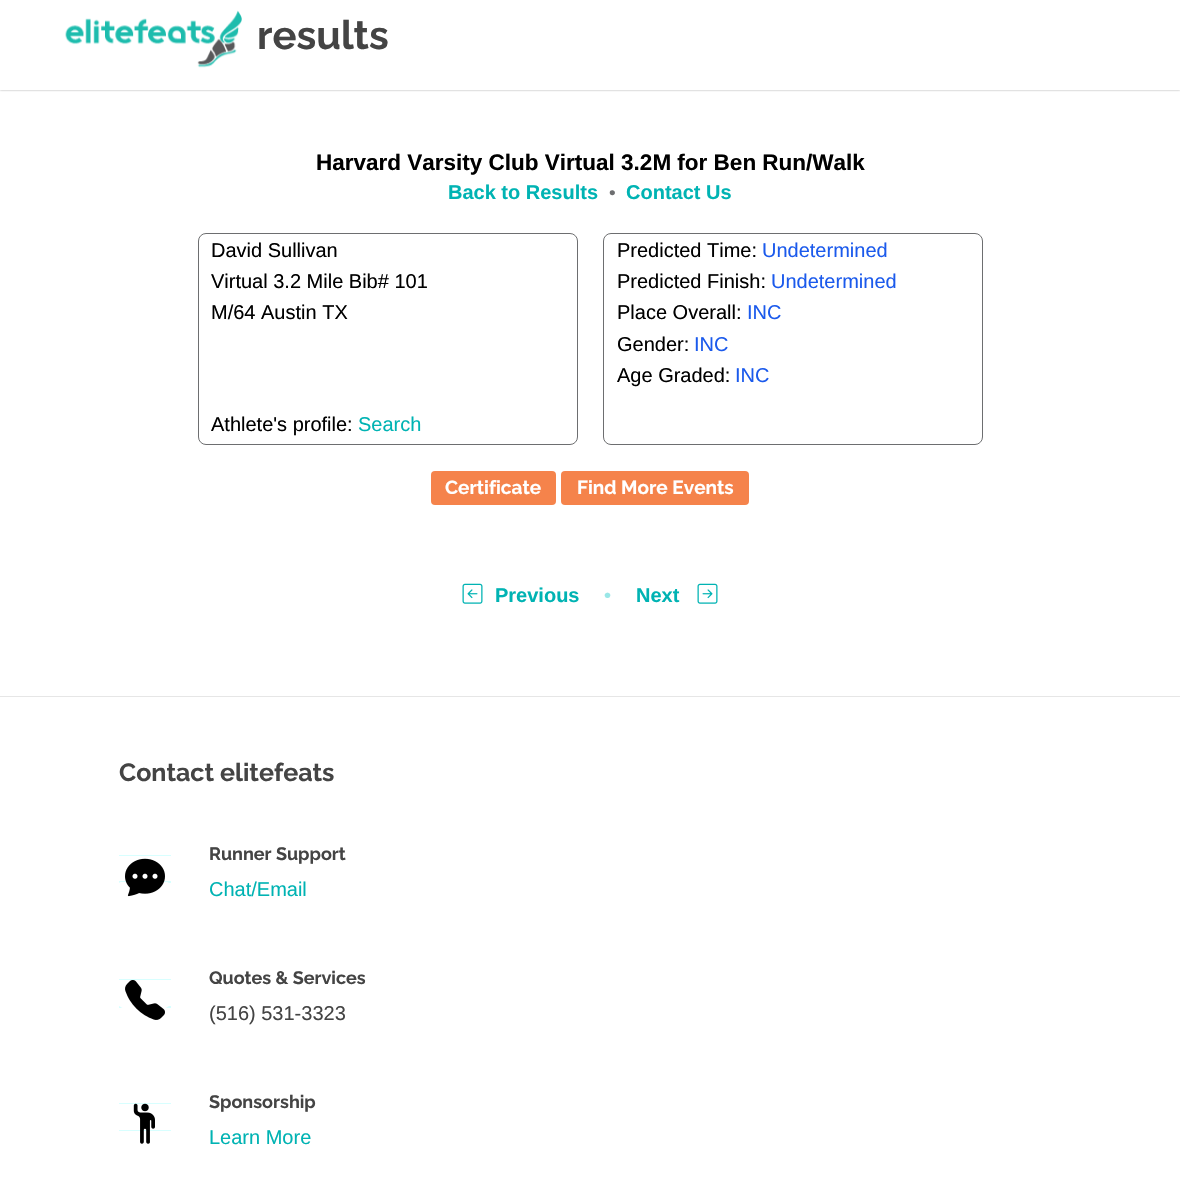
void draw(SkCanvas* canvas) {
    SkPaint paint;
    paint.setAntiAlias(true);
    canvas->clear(0xFFFFFFFF);
    canvas->save();
    canvas->clipRect(SkRect::MakeXYWH(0, 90, 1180, 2));
    paint.setColor(0x59000000);
    paint.setMaskFilter(SkMaskFilter::MakeBlur(kNormal_SkBlurStyle, 1));
    canvas->drawRect(SkRect::MakeXYWH(0, 0, 1180, 90), paint);
    paint.setMaskFilter(nullptr);
    canvas->restore();
    canvas->drawImageRect(SkImages::DeferredFromEncodedData(SkData::MakeFromFileName("img1.png")), SkRect::MakeXYWH(65, 10, 177, 58), SkSamplingOptions());
    SkFont font1(fontMgr->matchFamilyStyle("Raleway", SkFontStyle::Bold()), 40);
    font1.setSubpixel(true);
    paint.setColor(0xFF444444);
    canvas->drawString("results", 257, 49, font1, paint);
    SkFont font2(fontMgr->matchFamilyStyle("Liberation Sans", SkFontStyle::Bold()), 22.5f);
    font2.setSubpixel(true);
    paint.setColor(0xFF000000);
    canvas->drawString("Harvard Varsity Club Virtual 3.2M for Ben Run/Walk", 316, 170, font2, paint);
    SkFont font3(fontMgr->matchFamilyStyle("Liberation Sans", SkFontStyle::Bold()), 20);
    font3.setSubpixel(true);
    paint.setColor(0xFF00B3B3);
    canvas->drawString("Back to Results", 448, 199, font3, paint);
    SkFont font4(fontMgr->matchFamilyStyle("Liberation Sans", SkFontStyle::Normal()), 19);
    font4.setSubpixel(true);
    paint.setColor(0xFF6D6E70);
    canvas->drawString("•", 609, 199, font4, paint);
    paint.setColor(0xFF00B3B3);
    canvas->drawString("Contact Us", 626, 199, font3, paint);
    paint.setStyle(SkPaint::kStroke_Style);
    paint.setStrokeWidth(1);
    paint.setColor(0xFF6D6E70);
    canvas->drawRoundRect(SkRect::MakeXYWH(198.5f, 233.5f, 379, 211), 7.5f, 7.5f, paint);
    SkFont font5(fontMgr->matchFamilyStyle("Liberation Sans", SkFontStyle::Normal()), 20);
    font5.setSubpixel(true);
    paint.setStyle(SkPaint::kFill_Style);
    paint.setColor(0xFF000000);
    canvas->drawString("David Sullivan", 211, 257, font5, paint);
    canvas->drawString("Virtual 3.2 Mile Bib# 101", 211, 288, font5, paint);
    canvas->drawString("M/64 Austin TX", 211, 319, font5, paint);
    canvas->drawString("Athlete's profile:", 211, 431, font5, paint);
    paint.setColor(0xFF00B3B3);
    canvas->drawString("Search", 358, 431, font5, paint);
    paint.setStyle(SkPaint::kStroke_Style);
    paint.setColor(0xFF6D6E70);
    canvas->drawRoundRect(SkRect::MakeXYWH(603.5f, 233.5f, 379, 211), 7.5f, 7.5f, paint);
    paint.setStyle(SkPaint::kFill_Style);
    paint.setColor(0xFF000000);
    canvas->drawString("Predicted Time:", 617, 257, font5, paint);
    paint.setColor(0xFF1B5AEC);
    canvas->drawString("Undetermined", 762, 257, font5, paint);
    paint.setColor(0xFF000000);
    canvas->drawString("Predicted Finish:", 617, 288, font5, paint);
    paint.setColor(0xFF1B5AEC);
    canvas->drawString("Undetermined", 771, 288, font5, paint);
    paint.setColor(0xFF000000);
    canvas->drawString("Place Overall:", 617, 319, font5, paint);
    paint.setColor(0xFF1B5AEC);
    canvas->drawString("INC", 747, 319, font5, paint);
    paint.setColor(0xFF000000);
    canvas->drawString("Gender:", 617, 351, font5, paint);
    paint.setColor(0xFF1B5AEC);
    canvas->drawString("INC", 694, 351, font5, paint);
    paint.setColor(0xFF000000);
    canvas->drawString("Age Graded:", 617, 382, font5, paint);
    paint.setColor(0xFF1B5AEC);
    canvas->drawString("INC", 735, 382, font5, paint);
    paint.setColor(0xFFF5834B);
    canvas->drawRoundRect(SkRect::MakeXYWH(431, 471, 125, 34), 4, 4, paint);
    SkFont font6(fontMgr->matchFamilyStyle("Raleway", SkFontStyle::Bold()), 19);
    font6.setSubpixel(true);
    paint.setColor(0xFFFFFFFF);
    canvas->drawString("Certificate", 445, 494, font6, paint);
    paint.setColor(0xFFF5834B);
    canvas->drawRoundRect(SkRect::MakeXYWH(561, 471, 188, 34), 4, 4, paint);
    paint.setColor(0xFFFFFFFF);
    canvas->drawString("Find More Events", 577, 494, font6, paint);
    canvas->drawImageRect(SkImages::DeferredFromEncodedData(SkData::MakeFromFileName("img2.png")), SkRect::MakeXYWH(462, 583, 21, 21), SkSamplingOptions());
    paint.setColor(0xFF00B3B3);
    canvas->drawString("Previous", 495, 602, font3, paint);
    paint.setColor(0xFF99E7E7);
    canvas->drawString("•", 604, 602, font5, paint);
    paint.setColor(0xFF00B3B3);
    canvas->drawString("Next", 636, 602, font3, paint);
    canvas->drawImageRect(SkImages::DeferredFromEncodedData(SkData::MakeFromFileName("img3.png")), SkRect::MakeXYWH(697, 583, 21, 21), SkSamplingOptions());
    paint.setColor(0xFFE6E6E6);
    canvas->drawRect(SkRect::MakeXYWH(0, 696, 1180, 1), paint);
    SkFont font7(fontMgr->matchFamilyStyle("Raleway", SkFontStyle::Bold()), 25);
    font7.setSubpixel(true);
    paint.setColor(0xFF444444);
    canvas->drawString("Contact elitefeats", 119, 781, font7, paint);
    paint.setColor(0xFFD8FFFF);
    canvas->drawRect(SkRect::MakeXYWH(119, 881, 52, 2), paint);
    canvas->drawRect(SkRect::MakeXYWH(119, 855, 52, 1), paint);
    paint.setColor(0xFFFFFFFF);
    canvas->drawPath(SkPathBuilder().moveTo(119, 882).lineTo(169, 882).lineTo(144, 898).close().detach(), paint);
    canvas->drawImageRect(SkImages::DeferredFromEncodedData(SkData::MakeFromFileName("img4.png")), SkRect::MakeXYWH(125, 858, 40, 39), SkSamplingOptions());
    SkFont font8(fontMgr->matchFamilyStyle("Raleway", SkFontStyle::Bold()), 18);
    font8.setSubpixel(true);
    paint.setColor(0xFF444444);
    canvas->drawString("Runner Support", 209, 860, font8, paint);
    paint.setColor(0xFF00B3B3);
    canvas->drawString("Chat/Email", 209, 896, font5, paint);
    paint.setColor(0xFF444444);
    canvas->drawString("Quotes & Services", 209, 984, font8, paint);
    paint.setColor(0xFFD8FFFF);
    canvas->drawRect(SkRect::MakeXYWH(119, 1006, 52, 2), paint);
    canvas->drawRect(SkRect::MakeXYWH(119, 979, 52, 1), paint);
    paint.setColor(0xFFFFFFFF);
    canvas->drawPath(SkPathBuilder().moveTo(119, 1006).lineTo(169, 1006).lineTo(144, 1021).close().detach(), paint);
    canvas->drawImageRect(SkImages::DeferredFromEncodedData(SkData::MakeFromFileName("img5.png")), SkRect::MakeXYWH(125, 980, 40, 40), SkSamplingOptions());
    paint.setColor(0xFF444444);
    canvas->drawString("(516) 531-3323", 209, 1020, font5, paint);
    paint.setColor(0xFFD8FFFF);
    canvas->drawRect(SkRect::MakeXYWH(119, 1130, 52, 1), paint);
    canvas->drawRect(SkRect::MakeXYWH(119, 1103, 52, 1), paint);
    canvas->drawImageRect(SkImages::DeferredFromEncodedData(SkData::MakeFromFileName("img6.png")), SkRect::MakeXYWH(133, 1103, 22, 41), SkSamplingOptions());
    paint.setColor(0xFF444444);
    canvas->drawString("Sponsorship", 209, 1108, font8, paint);
    paint.setColor(0xFF00B3B3);
    canvas->drawString("Learn More", 209, 1144, font5, paint);
}
